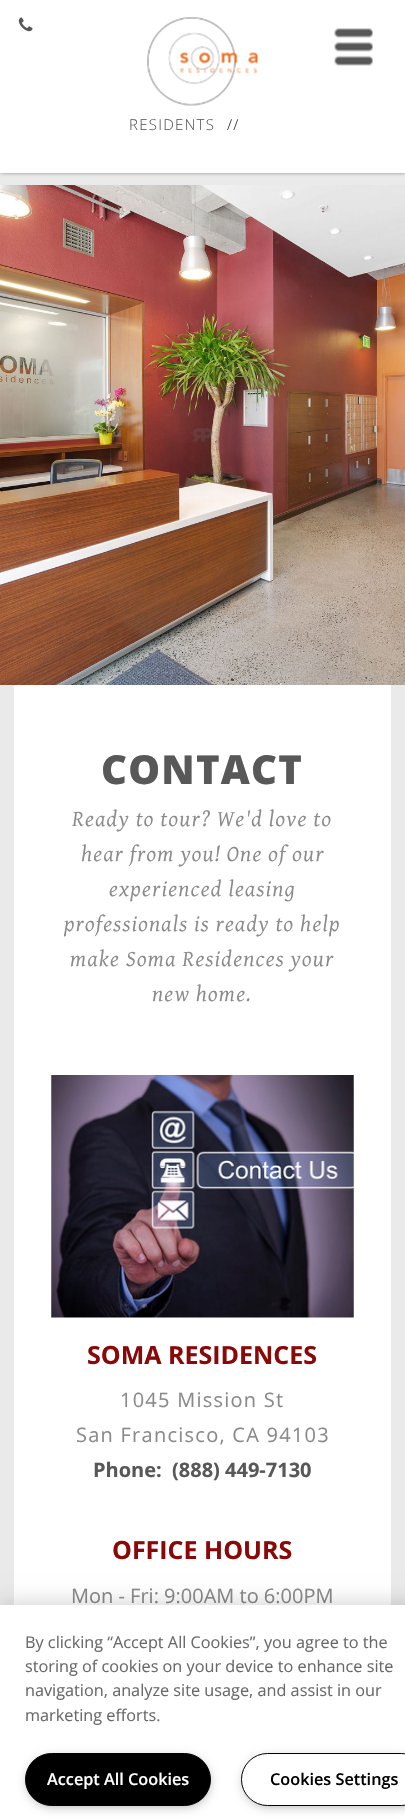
void draw(SkCanvas* canvas) {
    SkPaint paint;
    paint.setAntiAlias(true);
    auto spacedText = [&](const char* s, float x, float y, const SkFont& font, const SkPaint& ink, float letter, float word) {
        std::vector<SkGlyphID> glyphs(font.countText(s, strlen(s), SkTextEncoding::kUTF8));
        std::vector<float> xs(glyphs.size());
        font.textToGlyphs(s, strlen(s), SkTextEncoding::kUTF8, glyphs);
        font.getXPos(glyphs, xs, x);
        float extra = 0;
        for (size_t i = 0; i < glyphs.size(); i++) {
            xs[i] += extra;
            extra += letter + word * (glyphs[i] == font.unicharToGlyph(' '));
        }
        canvas->drawTextBlob(SkTextBlob::MakeFromPosHGlyphs(glyphs, xs, y, font), 0, 0, ink);
    };
    canvas->clear(0xFFEAEAEA);
    paint.setColor(0xFF000000);
    paint.setMaskFilter(SkMaskFilter::MakeBlur(kNormal_SkBlurStyle, 2.5f));
    canvas->drawRect(SkRect::MakeXYWH(1, -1, 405, 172), paint);
    paint.setMaskFilter(nullptr);
    paint.setColor(0xFFFFFFFF);
    canvas->drawRect(SkRect::MakeXYWH(0, 0, 405, 173), paint);
    canvas->drawImageRect(SkImages::DeferredFromEncodedData(SkData::MakeFromFileName("img1.png")), SkRect::MakeXYWH(18, 17, 15, 15), SkSamplingOptions());
    canvas->drawImageRect(SkImages::DeferredFromEncodedData(SkData::MakeFromFileName("img2.png")), SkRect::MakeXYWH(147, 17, 111, 89), SkSamplingOptions());
    canvas->drawImageRect(SkImages::DeferredFromEncodedData(SkData::MakeFromFileName("img3.png")), SkRect::MakeXYWH(334, 28, 39, 38), SkSamplingOptions());
    SkFont font1(fontMgr->matchFamilyStyle("Open Sans", SkFontStyle(300, SkFontStyle::kNormal_Width, SkFontStyle::kUpright_Slant)), 15);
    font1.setSubpixel(true);
    paint.setColor(0xFF585858);
    spacedText("RESIDENTS", 129, 130, font1, paint, 1.25f, 0);
    paint.setColor(0xFF333333);
    spacedText("//", 227, 130, font1, paint, 1.25f, 0);
    canvas->drawImageRect(SkImages::DeferredFromEncodedData(SkData::MakeFromFileName("img4.png")), SkRect::MakeXYWH(0, 185, 405, 500), SkSamplingOptions());
    paint.setColor(0xFFFFFFFF);
    canvas->drawRect(SkRect::MakeXYWH(14, 685, 377, 920), paint);
    SkFont font2(fontMgr->matchFamilyStyle("Open Sans", SkFontStyle(800, SkFontStyle::kNormal_Width, SkFontStyle::kUpright_Slant)), 40);
    font2.setSubpixel(true);
    paint.setColor(0xFF585858);
    spacedText("CONTACT", 101, 784, font2, paint, 1.25f, 0);
    SkFont font3(fontMgr->matchFamilyStyle("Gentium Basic", SkFontStyle::Italic()), 22.5f);
    font3.setSubpixel(true);
    paint.setColor(0xFF8B8A8B);
    spacedText("Ready to tour? We'd love to", 72, 826, font3, paint, 1.25f, 0);
    spacedText("hear from you! One of our", 81, 861, font3, paint, 1.25f, 0);
    spacedText("experienced leasing", 109, 896, font3, paint, 1.25f, 0);
    spacedText("professionals is ready to help", 64, 931, font3, paint, 1.25f, 0);
    spacedText("make Soma Residences your", 70, 966, font3, paint, 1.25f, 0);
    spacedText("new home.", 152, 1001, font3, paint, 1.25f, 0);
    canvas->drawImageRect(SkImages::DeferredFromEncodedData(SkData::MakeFromFileName("img5.png")), SkRect::MakeXYWH(51, 1075, 303, 243), SkSamplingOptions());
    SkFont font4(fontMgr->matchFamilyStyle("Open Sans", SkFontStyle::Bold()), 25);
    font4.setSubpixel(true);
    paint.setColor(0xFF8A0808);
    canvas->drawString("SOMA RESIDENCES", 87, 1364, font4, paint);
    SkFont font5(fontMgr->matchFamilyStyle("Open Sans", SkFontStyle::Normal()), 20);
    font5.setSubpixel(true);
    paint.setColor(0xFF8B8A8B);
    spacedText("1045 Mission St", 120, 1407, font5, paint, 1.25f, 0);
    spacedText("San Francisco, CA 94103", 76, 1442, font5, paint, 1.25f, 0);
    SkFont font6(fontMgr->matchFamilyStyle("Open Sans", SkFontStyle::Bold()), 20);
    font6.setSubpixel(true);
    paint.setColor(0xFF585858);
    canvas->drawString("Phone:", 93, 1477, font6, paint);
    canvas->drawString("(888) 449-7130", 172, 1477, font6, paint);
    paint.setColor(0xFF8A0808);
    canvas->drawString("OFFICE HOURS", 112, 1559, font4, paint);
    paint.setColor(0xFF8B8A8B);
    canvas->drawString("Mon - Fri: 9:00AM to 6:00PM", 71, 1603, font5, paint);
    paint.setColor(0x33000000);
    paint.setMaskFilter(SkMaskFilter::MakeBlur(kNormal_SkBlurStyle, 11));
    canvas->drawRect(SkRect::MakeXYWH(0, 1605, 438, 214), paint);
    paint.setMaskFilter(nullptr);
    paint.setColor(0xFFFFFFFF);
    canvas->drawRect(SkRect::MakeXYWH(0, 1605, 405, 213), paint);
    SkFont font7(fontMgr->matchFamilyStyle("Open Sans", SkFontStyle::Normal()), 16.25f);
    font7.setSubpixel(true);
    paint.setColor(0xFF696969);
    canvas->drawString("By clicking “Accept All Cookies”, you agree to the", 25, 1648, font7, paint);
    canvas->drawString("storing of cookies on your device to enhance site", 25, 1672, font7, paint);
    canvas->drawString("navigation, analyze site usage, and assist in our", 25, 1696, font7, paint);
    canvas->drawString("marketing efforts.", 25, 1721, font7, paint);
    paint.setColor(0xFF999999);
    paint.setMaskFilter(SkMaskFilter::MakeBlur(kNormal_SkBlurStyle, 6));
    canvas->drawRoundRect(SkRect::MakeXYWH(29, 1759, 179, 46), 23, 23, paint);
    paint.setMaskFilter(nullptr);
    paint.setColor(0xFF000000);
    canvas->drawRoundRect(SkRect::MakeXYWH(25.5f, 1753.5f, 185, 52), 26, 26, paint);
    paint.setStyle(SkPaint::kStroke_Style);
    paint.setStrokeWidth(1);
    canvas->drawRoundRect(SkRect::MakeXYWH(25.5f, 1753.5f, 185, 52), 26, 26, paint);
    SkFont font8(fontMgr->matchFamilyStyle("Open Sans", SkFontStyle(600, SkFontStyle::kNormal_Width, SkFontStyle::kUpright_Slant)), 16.25f);
    font8.setSubpixel(true);
    paint.setStyle(SkPaint::kFill_Style);
    paint.setColor(0xFFFFFFFF);
    canvas->drawString("Accept All Cookies", 47, 1785, font8, paint);
    paint.setColor(0xFF999999);
    paint.setMaskFilter(SkMaskFilter::MakeBlur(kNormal_SkBlurStyle, 6));
    canvas->drawRoundRect(SkRect::MakeXYWH(245, 1759, 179, 46), 23, 23, paint);
    paint.setMaskFilter(nullptr);
    paint.setColor(0xFFFFFFFF);
    canvas->drawRoundRect(SkRect::MakeXYWH(241.5f, 1753.5f, 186, 52), 26, 26, paint);
    paint.setStyle(SkPaint::kStroke_Style);
    paint.setColor(0xFF000000);
    canvas->drawRoundRect(SkRect::MakeXYWH(241.5f, 1753.5f, 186, 52), 26, 26, paint);
    paint.setStyle(SkPaint::kFill_Style);
    canvas->drawString("Cookies Settings", 270, 1785, font8, paint);
}
